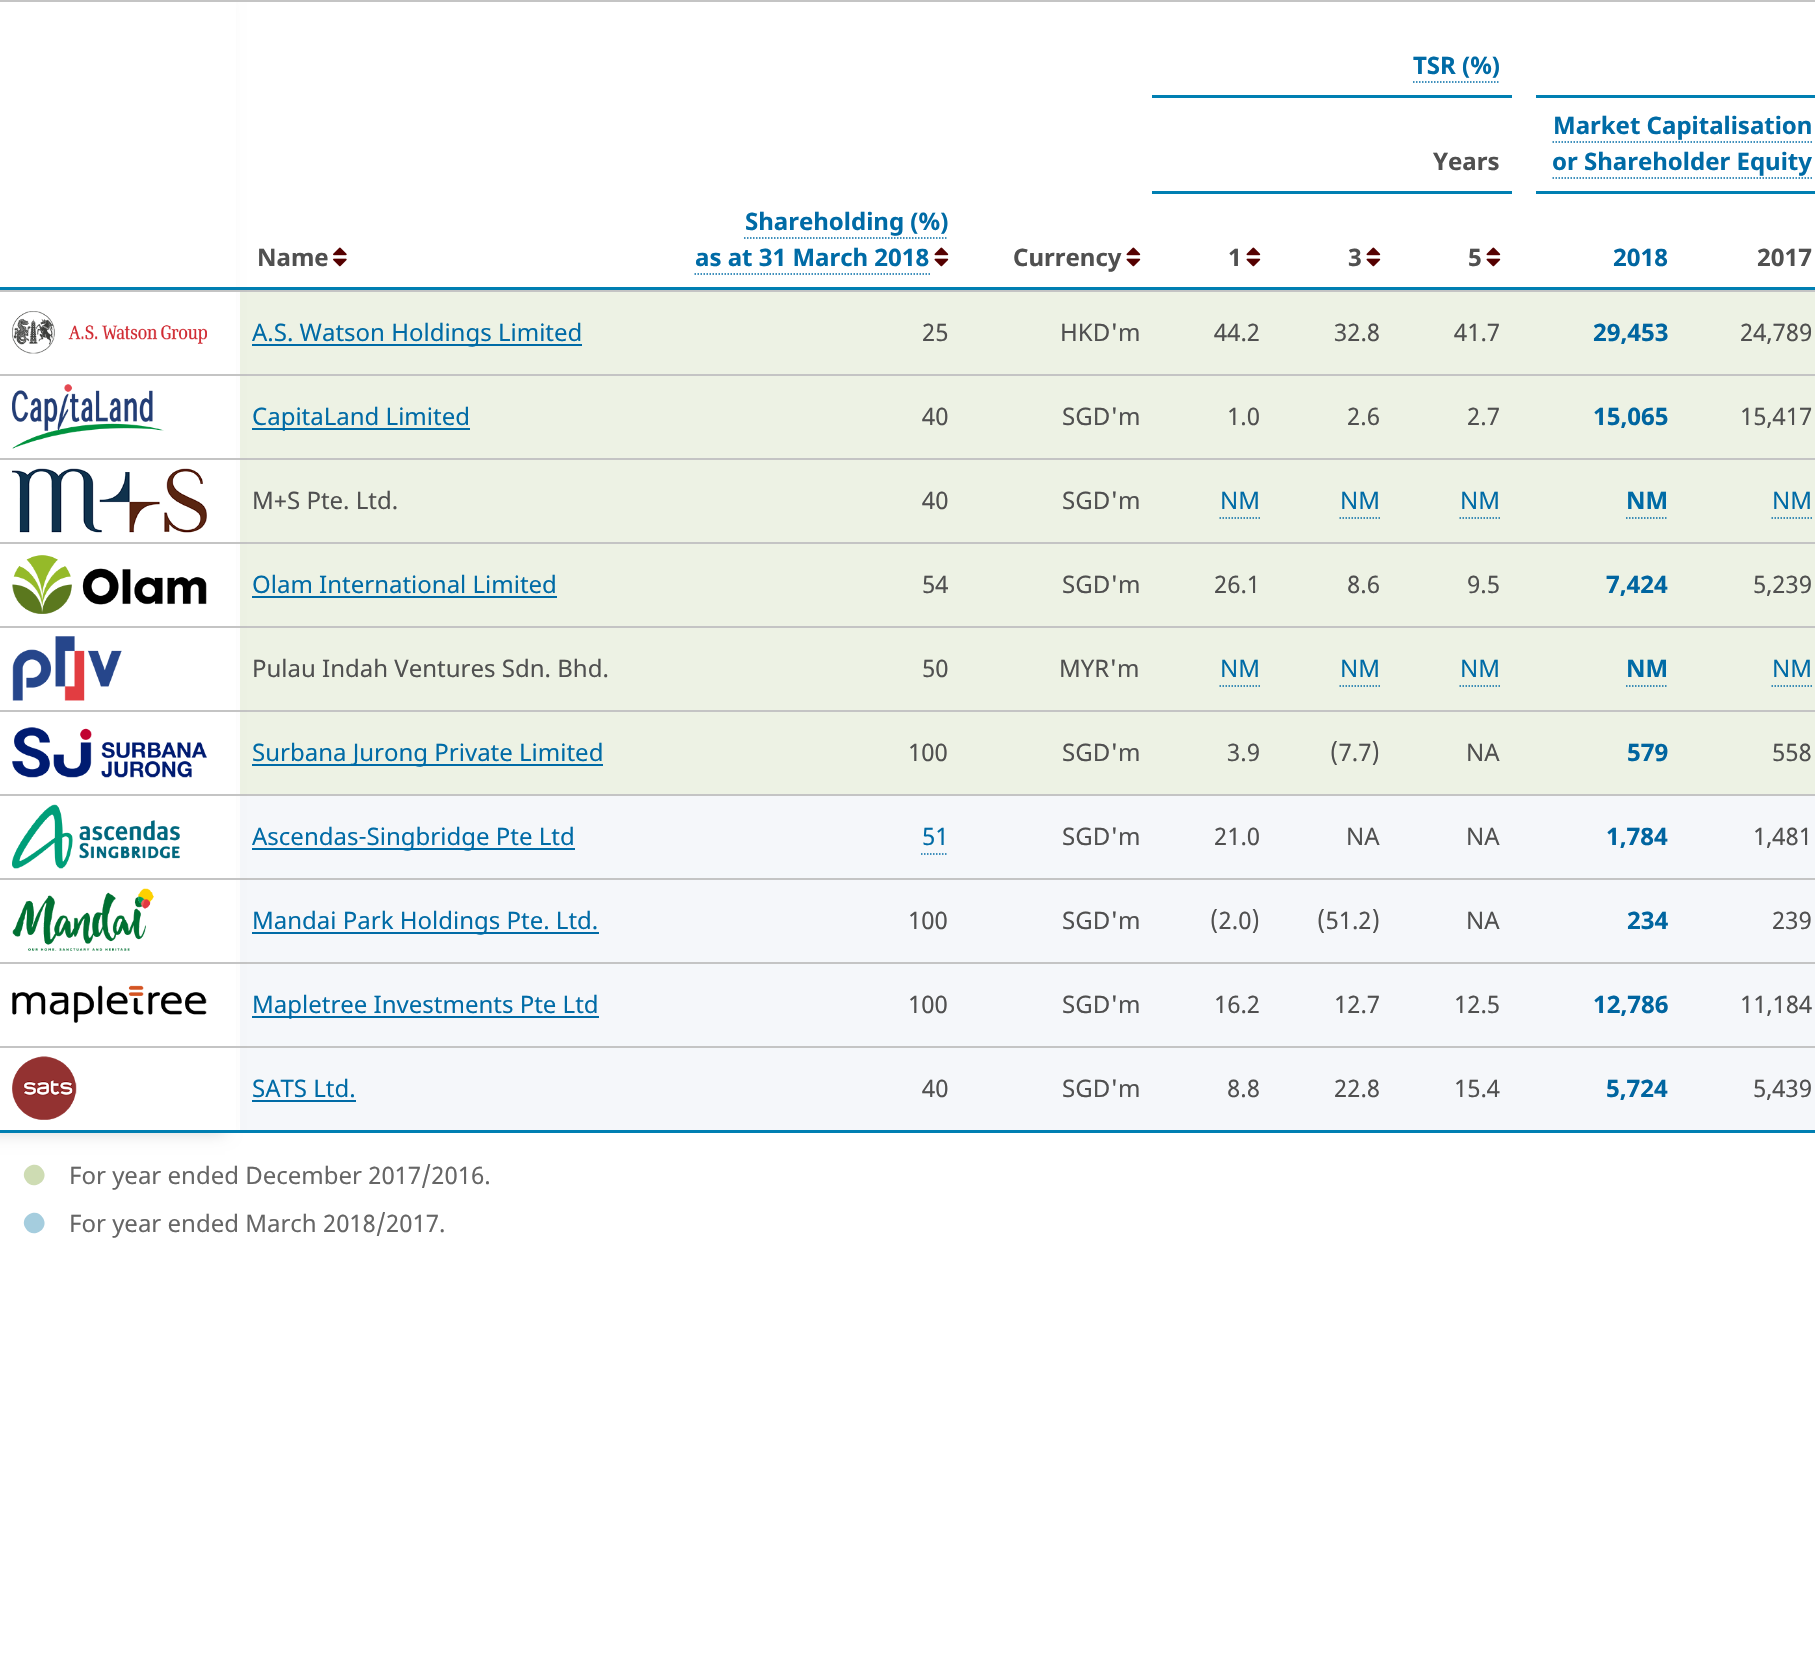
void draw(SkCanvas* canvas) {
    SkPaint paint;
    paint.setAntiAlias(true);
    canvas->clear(0xFFFFFFFF);
    paint.setColor(0xFFC4C4C4);
    canvas->drawRect(SkRect::MakeXYWH(0, 0, 1815, 2), paint);
    paint.setColor(0xFF007FB2);
    canvas->drawRect(SkRect::MakeXYWH(240, 1130, 1575, 3), paint);
    canvas->drawRect(SkRect::MakeXYWH(240, 287, 1575, 3), paint);
    paint.setColor(0xFFEDF2E4);
    canvas->drawRect(SkRect::MakeXYWH(240, 292, 1575, 82), paint);
    paint.setColor(0xFFC4C4C4);
    canvas->drawRect(SkRect::MakeXYWH(240, 290, 1575, 2), paint);
    paint.setColor(0xFFEDF2E4);
    canvas->drawRect(SkRect::MakeXYWH(240, 376, 1575, 82), paint);
    paint.setColor(0xFFC4C4C4);
    canvas->drawRect(SkRect::MakeXYWH(240, 374, 1575, 2), paint);
    paint.setColor(0xFFEDF2E4);
    canvas->drawRect(SkRect::MakeXYWH(240, 460, 1575, 82), paint);
    paint.setColor(0xFFC4C4C4);
    canvas->drawRect(SkRect::MakeXYWH(240, 458, 1575, 2), paint);
    paint.setColor(0xFFEDF2E4);
    canvas->drawRect(SkRect::MakeXYWH(240, 544, 1575, 82), paint);
    paint.setColor(0xFFC4C4C4);
    canvas->drawRect(SkRect::MakeXYWH(240, 542, 1575, 2), paint);
    paint.setColor(0xFFEDF2E4);
    canvas->drawRect(SkRect::MakeXYWH(240, 628, 1575, 82), paint);
    paint.setColor(0xFFC4C4C4);
    canvas->drawRect(SkRect::MakeXYWH(240, 626, 1575, 2), paint);
    paint.setColor(0xFFEDF2E4);
    canvas->drawRect(SkRect::MakeXYWH(240, 712, 1575, 82), paint);
    paint.setColor(0xFFC4C4C4);
    canvas->drawRect(SkRect::MakeXYWH(240, 710, 1575, 2), paint);
    paint.setColor(0xFFF5F7FA);
    canvas->drawRect(SkRect::MakeXYWH(240, 796, 1575, 82), paint);
    paint.setColor(0xFFC4C4C4);
    canvas->drawRect(SkRect::MakeXYWH(240, 794, 1575, 2), paint);
    paint.setColor(0xFFF5F7FA);
    canvas->drawRect(SkRect::MakeXYWH(240, 880, 1575, 82), paint);
    paint.setColor(0xFFC4C4C4);
    canvas->drawRect(SkRect::MakeXYWH(240, 878, 1575, 2), paint);
    paint.setColor(0xFFF5F7FA);
    canvas->drawRect(SkRect::MakeXYWH(240, 964, 1575, 82), paint);
    paint.setColor(0xFFC4C4C4);
    canvas->drawRect(SkRect::MakeXYWH(240, 962, 1575, 2), paint);
    paint.setColor(0xFFF5F7FA);
    canvas->drawRect(SkRect::MakeXYWH(240, 1048, 1575, 82), paint);
    paint.setColor(0xFFC4C4C4);
    canvas->drawRect(SkRect::MakeXYWH(240, 1046, 1575, 2), paint);
    canvas->save();
    canvas->clipRect(SkRect::MakeXYWH(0, 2, 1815, 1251));
    paint.setColor(0x26000000);
    paint.setMaskFilter(SkMaskFilter::MakeBlur(kNormal_SkBlurStyle, 7.5f));
    canvas->drawRect(SkRect::MakeXYWH(-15, 2, 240, 1131), paint);
    paint.setMaskFilter(nullptr);
    canvas->restore();
    paint.setColor(0xFFFFFFFF);
    canvas->drawRect(SkRect::MakeXYWH(0, 2, 236, 1128), paint);
    paint.setColor(0xFF007FB2);
    canvas->drawRect(SkRect::MakeXYWH(0, 1130, 240, 3), paint);
    canvas->drawRect(SkRect::MakeXYWH(0, 287, 240, 3), paint);
    paint.setColor(0xFFC4C4C4);
    canvas->drawRect(SkRect::MakeXYWH(0, 290, 240, 2), paint);
    canvas->drawImageRect(SkImages::DeferredFromEncodedData(SkData::MakeFromFileName("img1.png")), SkRect::MakeXYWH(12, 311, 195, 43), SkSamplingOptions());
    canvas->drawRect(SkRect::MakeXYWH(0, 374, 240, 2), paint);
    canvas->drawImageRect(SkImages::DeferredFromEncodedData(SkData::MakeFromFileName("img2.png")), SkRect::MakeXYWH(12, 384, 152, 65), SkSamplingOptions());
    canvas->drawRect(SkRect::MakeXYWH(0, 458, 240, 2), paint);
    canvas->drawImageRect(SkImages::DeferredFromEncodedData(SkData::MakeFromFileName("img3.png")), SkRect::MakeXYWH(12, 468, 195, 65), SkSamplingOptions());
    canvas->drawRect(SkRect::MakeXYWH(0, 542, 240, 2), paint);
    canvas->drawImageRect(SkImages::DeferredFromEncodedData(SkData::MakeFromFileName("img4.png")), SkRect::MakeXYWH(12, 555, 195, 59), SkSamplingOptions());
    canvas->drawRect(SkRect::MakeXYWH(0, 626, 240, 2), paint);
    canvas->drawImageRect(SkImages::DeferredFromEncodedData(SkData::MakeFromFileName("img5.png")), SkRect::MakeXYWH(12, 636, 110, 65), SkSamplingOptions());
    canvas->drawRect(SkRect::MakeXYWH(0, 710, 240, 2), paint);
    canvas->drawImageRect(SkImages::DeferredFromEncodedData(SkData::MakeFromFileName("img6.png")), SkRect::MakeXYWH(12, 727, 195, 51), SkSamplingOptions());
    canvas->drawRect(SkRect::MakeXYWH(0, 794, 240, 2), paint);
    canvas->drawImageRect(SkImages::DeferredFromEncodedData(SkData::MakeFromFileName("img7.png")), SkRect::MakeXYWH(12, 804, 168, 65), SkSamplingOptions());
    canvas->drawRect(SkRect::MakeXYWH(0, 878, 240, 2), paint);
    canvas->drawImageRect(SkImages::DeferredFromEncodedData(SkData::MakeFromFileName("img8.png")), SkRect::MakeXYWH(12, 888, 142, 63), SkSamplingOptions());
    canvas->drawRect(SkRect::MakeXYWH(0, 962, 240, 2), paint);
    canvas->drawImageRect(SkImages::DeferredFromEncodedData(SkData::MakeFromFileName("img9.png")), SkRect::MakeXYWH(12, 985, 195, 38), SkSamplingOptions());
    canvas->drawRect(SkRect::MakeXYWH(0, 1046, 240, 2), paint);
    canvas->drawImageRect(SkImages::DeferredFromEncodedData(SkData::MakeFromFileName("img10.png")), SkRect::MakeXYWH(12, 1056, 65, 64), SkSamplingOptions());
    paint.setColor(0xFF007FB2);
    canvas->drawRect(SkRect::MakeXYWH(1152, 95, 360, 3), paint);
    SkFont font1(fontMgr->matchFamilyStyle("Noto Sans", SkFontStyle::Bold()), 24);
    font1.setSubpixel(true);
    paint.setColor(0xFF006BA6);
    canvas->drawString("TSR (%)", 1413, 74, font1, paint);
    paint.setStyle(SkPaint::kStroke_Style);
    paint.setStrokeWidth(1.5f);
    paint.setPathEffect(SkDashPathEffect::Make({{1.5f, 1.5f}}, 0));
    canvas->drawPath(SkPathBuilder().moveTo(1413, 82).lineTo(1500, 82).detach(), paint);
    paint.setPathEffect(nullptr);
    paint.setStyle(SkPaint::kFill_Style);
    paint.setColor(0xFF007FB2);
    canvas->drawRect(SkRect::MakeXYWH(1536, 95, 279, 3), paint);
    canvas->drawRect(SkRect::MakeXYWH(1152, 191, 360, 3), paint);
    paint.setColor(0xFF505050);
    canvas->drawString("Years", 1433, 170, font1, paint);
    paint.setColor(0xFF007FB2);
    canvas->drawRect(SkRect::MakeXYWH(1536, 191, 279, 3), paint);
    paint.setColor(0xFF006BA6);
    canvas->drawString("Market Capitalisation", 1553, 134, font1, paint);
    paint.setStyle(SkPaint::kStroke_Style);
    paint.setPathEffect(SkDashPathEffect::Make({{1.5f, 1.5f}}, 0));
    canvas->drawPath(SkPathBuilder().moveTo(1552.5f, 142).lineTo(1812, 142).detach(), paint);
    paint.setPathEffect(nullptr);
    paint.setStyle(SkPaint::kFill_Style);
    canvas->drawString("or Shareholder Equity", 1552, 170, font1, paint);
    paint.setStyle(SkPaint::kStroke_Style);
    paint.setPathEffect(SkDashPathEffect::Make({{1.5f, 1.5f}}, 0));
    canvas->drawPath(SkPathBuilder().moveTo(1552.5f, 178).lineTo(1812, 178).detach(), paint);
    paint.setPathEffect(nullptr);
    paint.setStyle(SkPaint::kFill_Style);
    paint.setColor(0xFF505050);
    canvas->drawString("Name", 257, 266, font1, paint);
    canvas->drawImageRect(SkImages::DeferredFromEncodedData(SkData::MakeFromFileName("img11.png")), SkRect::MakeXYWH(333, 247, 14, 20), SkSamplingOptions());
    paint.setColor(0xFF006BA6);
    canvas->drawString("Shareholding (%)", 745, 230, font1, paint);
    paint.setStyle(SkPaint::kStroke_Style);
    paint.setPathEffect(SkDashPathEffect::Make({{1.5f, 1.5f}}, 0));
    canvas->drawPath(SkPathBuilder().moveTo(744, 238).lineTo(948, 238).detach(), paint);
    paint.setPathEffect(nullptr);
    paint.setStyle(SkPaint::kFill_Style);
    canvas->drawString("as at 31 March 2018", 695, 266, font1, paint);
    paint.setStyle(SkPaint::kStroke_Style);
    paint.setPathEffect(SkDashPathEffect::Make({{1.5f, 1.5f}}, 0));
    canvas->drawPath(SkPathBuilder().moveTo(694.5f, 274).lineTo(930, 274).detach(), paint);
    paint.setPathEffect(nullptr);
    canvas->drawImageRect(SkImages::DeferredFromEncodedData(SkData::MakeFromFileName("img12.png")), SkRect::MakeXYWH(934, 247, 15, 20), SkSamplingOptions());
    paint.setStyle(SkPaint::kFill_Style);
    paint.setColor(0xFF505050);
    canvas->drawString("Currency", 1013, 266, font1, paint);
    canvas->drawImageRect(SkImages::DeferredFromEncodedData(SkData::MakeFromFileName("img12.png")), SkRect::MakeXYWH(1126, 247, 15, 20), SkSamplingOptions());
    canvas->drawString("1", 1228, 266, font1, paint);
    canvas->drawImageRect(SkImages::DeferredFromEncodedData(SkData::MakeFromFileName("img12.png")), SkRect::MakeXYWH(1246, 247, 15, 20), SkSamplingOptions());
    canvas->drawString("3", 1348, 266, font1, paint);
    canvas->drawImageRect(SkImages::DeferredFromEncodedData(SkData::MakeFromFileName("img12.png")), SkRect::MakeXYWH(1366, 247, 15, 20), SkSamplingOptions());
    canvas->drawString("5", 1468, 266, font1, paint);
    canvas->drawImageRect(SkImages::DeferredFromEncodedData(SkData::MakeFromFileName("img12.png")), SkRect::MakeXYWH(1486, 247, 15, 20), SkSamplingOptions());
    paint.setColor(0xFF0065A0);
    canvas->drawString("2018", 1613, 266, font1, paint);
    paint.setColor(0xFF505050);
    canvas->drawString("2017", 1757, 266, font1, paint);
    paint.setColor(0xFF006BA6);
    canvas->drawRect(SkRect::MakeXYWH(252, 344, 330, 2), paint);
    SkFont font2(fontMgr->matchFamilyStyle("Noto Sans", SkFontStyle::Normal()), 24);
    font2.setSubpixel(true);
    canvas->drawString("A.S. Watson Holdings Limited", 252, 341, font2, paint);
    paint.setColor(0xFF505050);
    canvas->drawString("25", 922, 341, font2, paint);
    canvas->drawString("HKD'm", 1060, 341, font2, paint);
    canvas->drawString("44.2", 1214, 341, font2, paint);
    canvas->drawString("32.8", 1334, 341, font2, paint);
    canvas->drawString("41.7", 1454, 341, font2, paint);
    paint.setColor(0xFF0065A0);
    canvas->drawString("29,453", 1593, 341, font1, paint);
    paint.setColor(0xFF505050);
    canvas->drawString("24,789", 1740, 341, font2, paint);
    paint.setColor(0xFF006BA6);
    canvas->drawRect(SkRect::MakeXYWH(252, 428, 218, 2), paint);
    canvas->drawString("CapitaLand Limited", 252, 425, font2, paint);
    paint.setColor(0xFF505050);
    canvas->drawString("40", 922, 425, font2, paint);
    canvas->drawString("SGD'm", 1062, 425, font2, paint);
    canvas->drawString("1.0", 1227, 425, font2, paint);
    canvas->drawString("2.6", 1347, 425, font2, paint);
    canvas->drawString("2.7", 1467, 425, font2, paint);
    paint.setColor(0xFF0065A0);
    canvas->drawString("15,065", 1593, 425, font1, paint);
    paint.setColor(0xFF505050);
    canvas->drawString("15,417", 1740, 425, font2, paint);
    canvas->drawString("M+S Pte. Ltd.", 252, 509, font2, paint);
    canvas->drawString("40", 922, 509, font2, paint);
    canvas->drawString("SGD'm", 1062, 509, font2, paint);
    paint.setStyle(SkPaint::kStroke_Style);
    paint.setColor(0xFF006BA6);
    paint.setPathEffect(SkDashPathEffect::Make({{1.5f, 1.5f}}, 0));
    canvas->drawPath(SkPathBuilder().moveTo(1219.5f, 518).lineTo(1260, 518).detach(), paint);
    paint.setPathEffect(nullptr);
    paint.setStyle(SkPaint::kFill_Style);
    canvas->drawString("NM", 1220, 509, font2, paint);
    paint.setStyle(SkPaint::kStroke_Style);
    paint.setPathEffect(SkDashPathEffect::Make({{1.5f, 1.5f}}, 0));
    canvas->drawPath(SkPathBuilder().moveTo(1339.5f, 518).lineTo(1380, 518).detach(), paint);
    paint.setPathEffect(nullptr);
    paint.setStyle(SkPaint::kFill_Style);
    canvas->drawString("NM", 1340, 509, font2, paint);
    paint.setStyle(SkPaint::kStroke_Style);
    paint.setPathEffect(SkDashPathEffect::Make({{1.5f, 1.5f}}, 0));
    canvas->drawPath(SkPathBuilder().moveTo(1459.5f, 518).lineTo(1500, 518).detach(), paint);
    paint.setPathEffect(nullptr);
    paint.setStyle(SkPaint::kFill_Style);
    canvas->drawString("NM", 1460, 509, font2, paint);
    paint.setStyle(SkPaint::kStroke_Style);
    paint.setPathEffect(SkDashPathEffect::Make({{1.5f, 1.5f}}, 0));
    canvas->drawPath(SkPathBuilder().moveTo(1626, 518).lineTo(1668, 518).detach(), paint);
    paint.setPathEffect(nullptr);
    paint.setStyle(SkPaint::kFill_Style);
    canvas->drawString("NM", 1626, 509, font1, paint);
    paint.setStyle(SkPaint::kStroke_Style);
    paint.setPathEffect(SkDashPathEffect::Make({{1.5f, 1.5f}}, 0));
    canvas->drawPath(SkPathBuilder().moveTo(1771.5f, 518).lineTo(1812, 518).detach(), paint);
    paint.setPathEffect(nullptr);
    paint.setStyle(SkPaint::kFill_Style);
    canvas->drawString("NM", 1772, 509, font2, paint);
    canvas->drawString("Olam International Limited", 252, 593, font2, paint);
    canvas->drawRect(SkRect::MakeXYWH(252, 596, 305, 2), paint);
    paint.setColor(0xFF505050);
    canvas->drawString("54", 922, 593, font2, paint);
    canvas->drawString("SGD'm", 1062, 593, font2, paint);
    canvas->drawString("26.1", 1214, 593, font2, paint);
    canvas->drawString("8.6", 1347, 593, font2, paint);
    canvas->drawString("9.5", 1467, 593, font2, paint);
    paint.setColor(0xFF0065A0);
    canvas->drawString("7,424", 1606, 593, font1, paint);
    paint.setColor(0xFF505050);
    canvas->drawString("5,239", 1753, 593, font2, paint);
    canvas->drawString("Pulau Indah Ventures Sdn. Bhd.", 252, 677, font2, paint);
    canvas->drawString("50", 922, 677, font2, paint);
    canvas->drawString("MYR'm", 1059, 677, font2, paint);
    paint.setStyle(SkPaint::kStroke_Style);
    paint.setColor(0xFF006BA6);
    paint.setPathEffect(SkDashPathEffect::Make({{1.5f, 1.5f}}, 0));
    canvas->drawPath(SkPathBuilder().moveTo(1219.5f, 686).lineTo(1260, 686).detach(), paint);
    paint.setPathEffect(nullptr);
    paint.setStyle(SkPaint::kFill_Style);
    canvas->drawString("NM", 1220, 677, font2, paint);
    paint.setStyle(SkPaint::kStroke_Style);
    paint.setPathEffect(SkDashPathEffect::Make({{1.5f, 1.5f}}, 0));
    canvas->drawPath(SkPathBuilder().moveTo(1339.5f, 686).lineTo(1380, 686).detach(), paint);
    paint.setPathEffect(nullptr);
    paint.setStyle(SkPaint::kFill_Style);
    canvas->drawString("NM", 1340, 677, font2, paint);
    paint.setStyle(SkPaint::kStroke_Style);
    paint.setPathEffect(SkDashPathEffect::Make({{1.5f, 1.5f}}, 0));
    canvas->drawPath(SkPathBuilder().moveTo(1459.5f, 686).lineTo(1500, 686).detach(), paint);
    paint.setPathEffect(nullptr);
    paint.setStyle(SkPaint::kFill_Style);
    canvas->drawString("NM", 1460, 677, font2, paint);
    paint.setStyle(SkPaint::kStroke_Style);
    paint.setPathEffect(SkDashPathEffect::Make({{1.5f, 1.5f}}, 0));
    canvas->drawPath(SkPathBuilder().moveTo(1626, 686).lineTo(1668, 686).detach(), paint);
    paint.setPathEffect(nullptr);
    paint.setStyle(SkPaint::kFill_Style);
    canvas->drawString("NM", 1626, 677, font1, paint);
    paint.setStyle(SkPaint::kStroke_Style);
    paint.setPathEffect(SkDashPathEffect::Make({{1.5f, 1.5f}}, 0));
    canvas->drawPath(SkPathBuilder().moveTo(1771.5f, 686).lineTo(1812, 686).detach(), paint);
    paint.setPathEffect(nullptr);
    paint.setStyle(SkPaint::kFill_Style);
    canvas->drawString("NM", 1772, 677, font2, paint);
    canvas->drawRect(SkRect::MakeXYWH(252, 764, 351, 2), paint);
    canvas->drawString("Surbana Jurong Private Limited", 252, 761, font2, paint);
    paint.setColor(0xFF505050);
    canvas->drawString("100", 908, 761, font2, paint);
    canvas->drawString("SGD'm", 1062, 761, font2, paint);
    canvas->drawString("3.9", 1227, 761, font2, paint);
    canvas->drawString("(7.7)", 1330, 761, font2, paint);
    canvas->drawString("NA", 1466, 761, font2, paint);
    paint.setColor(0xFF0065A0);
    canvas->drawString("579", 1627, 761, font1, paint);
    paint.setColor(0xFF505050);
    canvas->drawString("558", 1772, 761, font2, paint);
    paint.setColor(0xFF006BA6);
    canvas->drawRect(SkRect::MakeXYWH(252, 848, 323, 2), paint);
    canvas->drawString("Ascendas-Singbridge Pte Ltd", 252, 845, font2, paint);
    paint.setStyle(SkPaint::kStroke_Style);
    paint.setPathEffect(SkDashPathEffect::Make({{1.5f, 1.5f}}, 0));
    canvas->drawPath(SkPathBuilder().moveTo(921, 854).lineTo(948, 854).detach(), paint);
    paint.setPathEffect(nullptr);
    paint.setStyle(SkPaint::kFill_Style);
    canvas->drawString("51", 922, 845, font2, paint);
    paint.setColor(0xFF505050);
    canvas->drawString("SGD'm", 1062, 845, font2, paint);
    canvas->drawString("21.0", 1214, 845, font2, paint);
    canvas->drawString("NA", 1346, 845, font2, paint);
    canvas->drawString("NA", 1466, 845, font2, paint);
    paint.setColor(0xFF0065A0);
    canvas->drawString("1,784", 1606, 845, font1, paint);
    paint.setColor(0xFF505050);
    canvas->drawString("1,481", 1753, 845, font2, paint);
    paint.setColor(0xFF006BA6);
    canvas->drawRect(SkRect::MakeXYWH(252, 932, 347, 2), paint);
    canvas->drawString("Mandai Park Holdings Pte. Ltd.", 252, 929, font2, paint);
    paint.setColor(0xFF505050);
    canvas->drawString("100", 908, 929, font2, paint);
    canvas->drawString("SGD'm", 1062, 929, font2, paint);
    canvas->drawString("(2.0)", 1210, 929, font2, paint);
    canvas->drawString("(51.2)", 1317, 929, font2, paint);
    canvas->drawString("NA", 1466, 929, font2, paint);
    paint.setColor(0xFF0065A0);
    canvas->drawString("234", 1627, 929, font1, paint);
    paint.setColor(0xFF505050);
    canvas->drawString("239", 1772, 929, font2, paint);
    paint.setColor(0xFF006BA6);
    canvas->drawRect(SkRect::MakeXYWH(252, 1016, 347, 2), paint);
    canvas->drawString("Mapletree Investments Pte Ltd", 252, 1013, font2, paint);
    paint.setColor(0xFF505050);
    canvas->drawString("100", 908, 1013, font2, paint);
    canvas->drawString("SGD'm", 1062, 1013, font2, paint);
    canvas->drawString("16.2", 1214, 1013, font2, paint);
    canvas->drawString("12.7", 1334, 1013, font2, paint);
    canvas->drawString("12.5", 1454, 1013, font2, paint);
    paint.setColor(0xFF0065A0);
    canvas->drawString("12,786", 1593, 1013, font1, paint);
    paint.setColor(0xFF505050);
    canvas->drawString("11,184", 1740, 1013, font2, paint);
    paint.setColor(0xFF006BA6);
    canvas->drawString("SATS Ltd.", 252, 1097, font2, paint);
    canvas->drawRect(SkRect::MakeXYWH(252, 1100, 104, 2), paint);
    paint.setColor(0xFF505050);
    canvas->drawString("40", 922, 1097, font2, paint);
    canvas->drawString("SGD'm", 1062, 1097, font2, paint);
    canvas->drawString("8.8", 1227, 1097, font2, paint);
    canvas->drawString("22.8", 1334, 1097, font2, paint);
    canvas->drawString("15.4", 1454, 1097, font2, paint);
    paint.setColor(0xFF0065A0);
    canvas->drawString("5,724", 1606, 1097, font1, paint);
    paint.setColor(0xFF505050);
    canvas->drawString("5,439", 1753, 1097, font2, paint);
    paint.setColor(0xFFCEDCB3);
    canvas->drawPath(SkPathBuilder().moveTo(43, 1170).cubicTo(50, 1181.5f, 32, 1192, 25.5f, 1180).cubicTo(18.5f, 1168.5f, 36.5f, 1158, 43, 1170).close().detach(), paint);
    paint.setColor(0xFF666666);
    canvas->drawString("For year ended December 2017/2016.", 69, 1184, font2, paint);
    paint.setColor(0xFFA5CDDE);
    canvas->drawPath(SkPathBuilder().moveTo(43, 1218).cubicTo(50, 1229.5f, 32, 1240, 25.5f, 1228).cubicTo(18.5f, 1216.5f, 36.5f, 1206, 43, 1218).close().detach(), paint);
    paint.setColor(0xFF666666);
    canvas->drawString("For year ended March 2018/2017.", 69, 1232, font2, paint);
}
